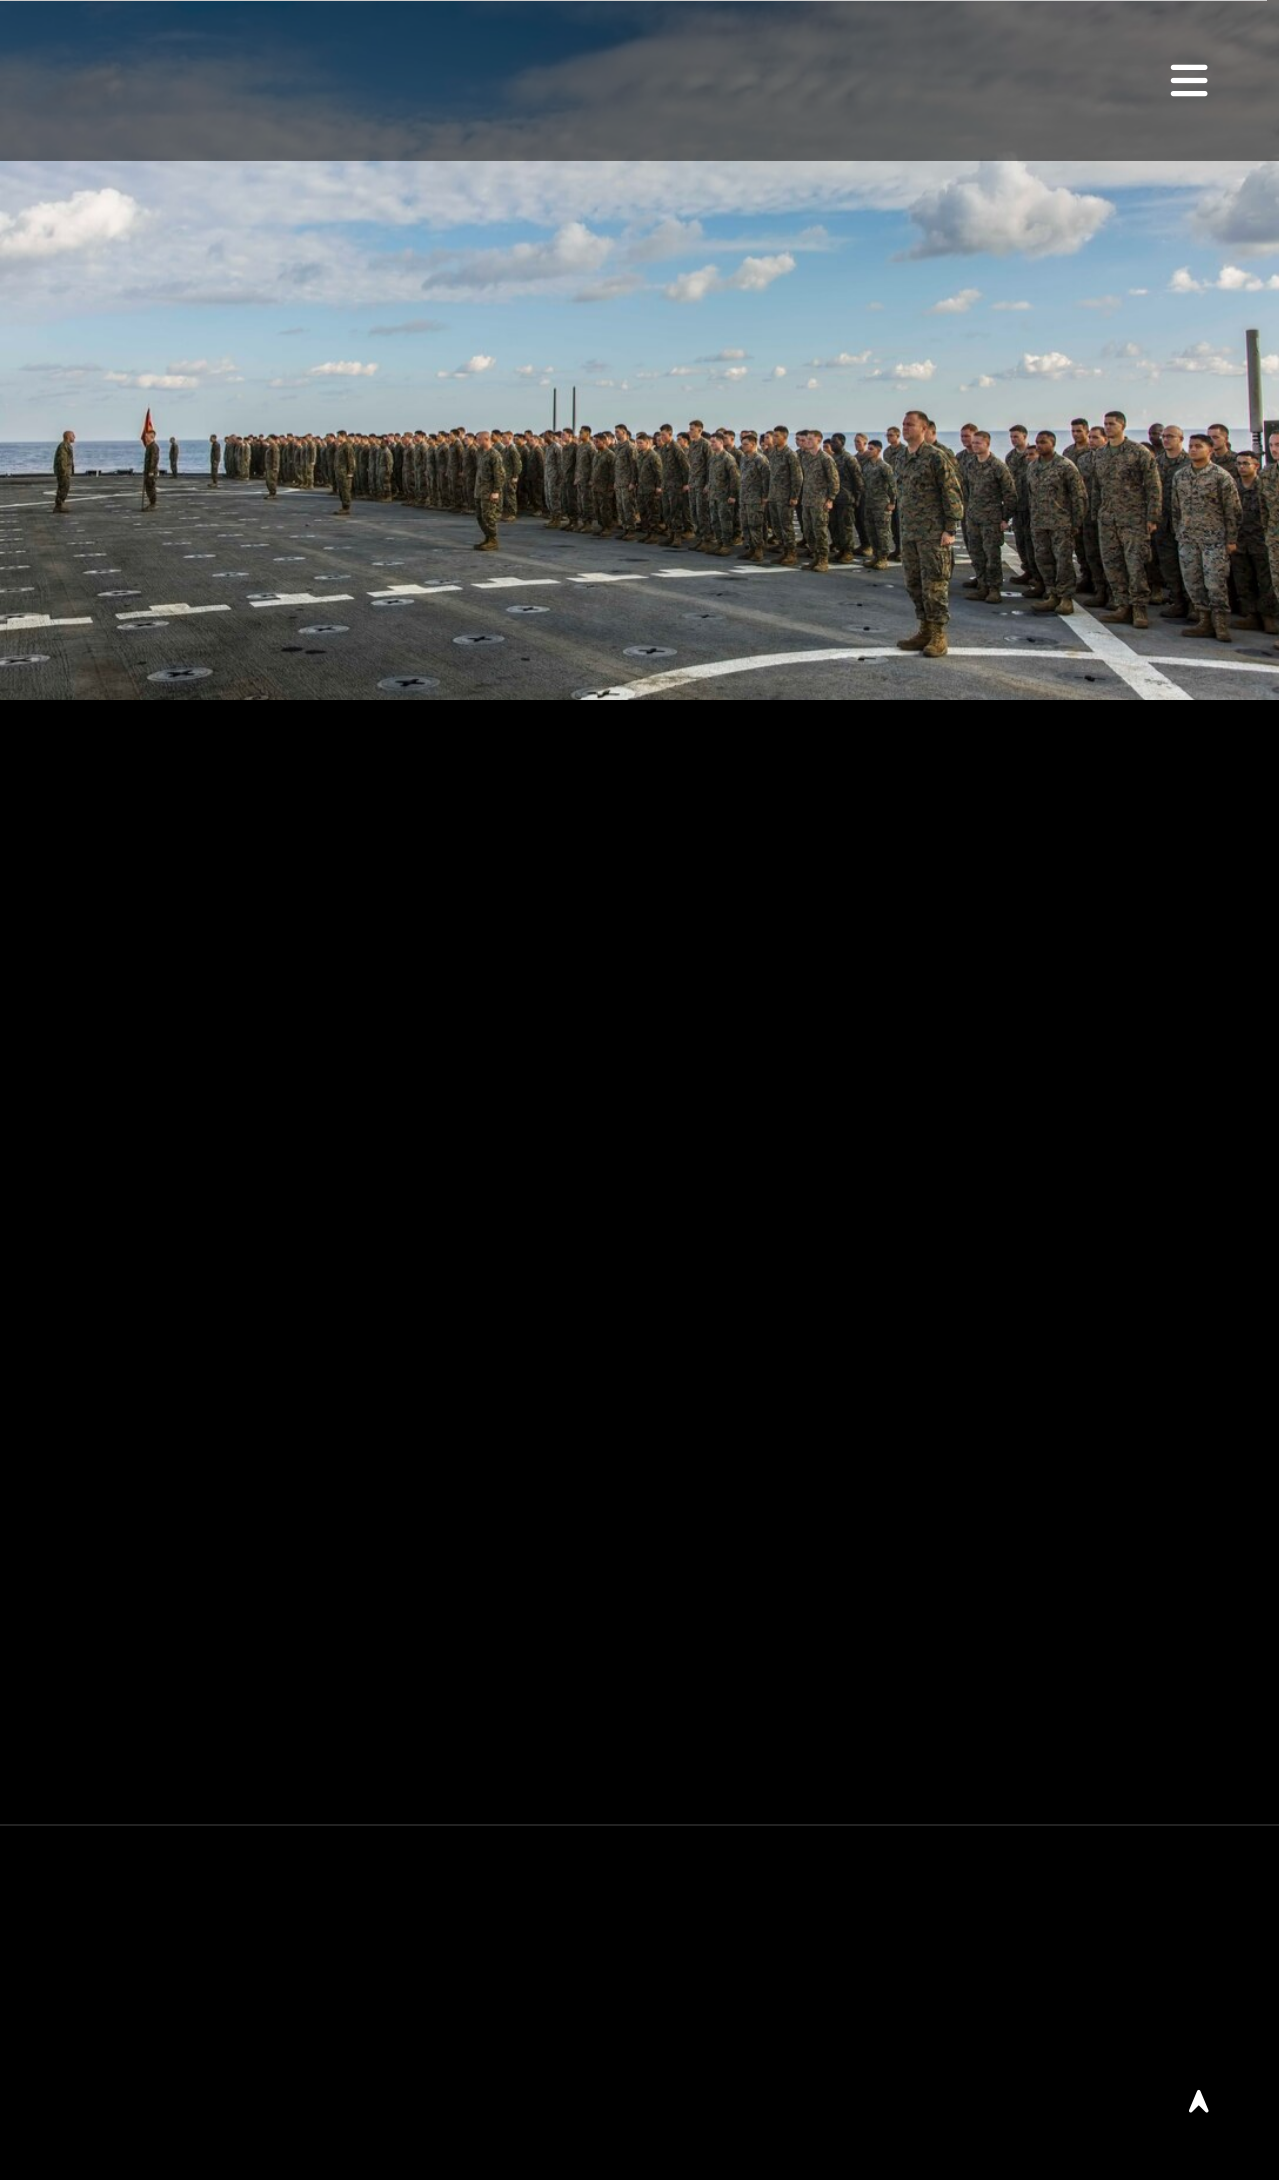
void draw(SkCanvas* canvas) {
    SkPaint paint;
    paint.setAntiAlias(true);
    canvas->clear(0xFF000000);
    canvas->drawImageRect(SkImages::DeferredFromEncodedData(SkData::MakeFromFileName("img1.png")), SkRect::MakeXYWH(0, 0, 1279, 700), SkSamplingOptions());
    paint.setColor(0x80000000);
    canvas->drawRect(SkRect::MakeXYWH(0, 0, 1279, 161), paint);
    canvas->drawImageRect(SkImages::DeferredFromEncodedData(SkData::MakeFromFileName("img2.png")), SkRect::MakeXYWH(1170, 64, 38, 33), SkSamplingOptions());
    paint.setColor(0xFFCCCCCC);
    canvas->drawRect(SkRect::MakeXYWH(0, 0, 1267, 1), paint);
    paint.setColor(0xFF232323);
    canvas->drawRect(SkRect::MakeXYWH(0, 1824, 1279, 2), paint);
    canvas->drawImageRect(SkImages::DeferredFromEncodedData(SkData::MakeFromFileName("img3.png")), SkRect::MakeXYWH(1189, 2089, 20, 24), SkSamplingOptions());
}
